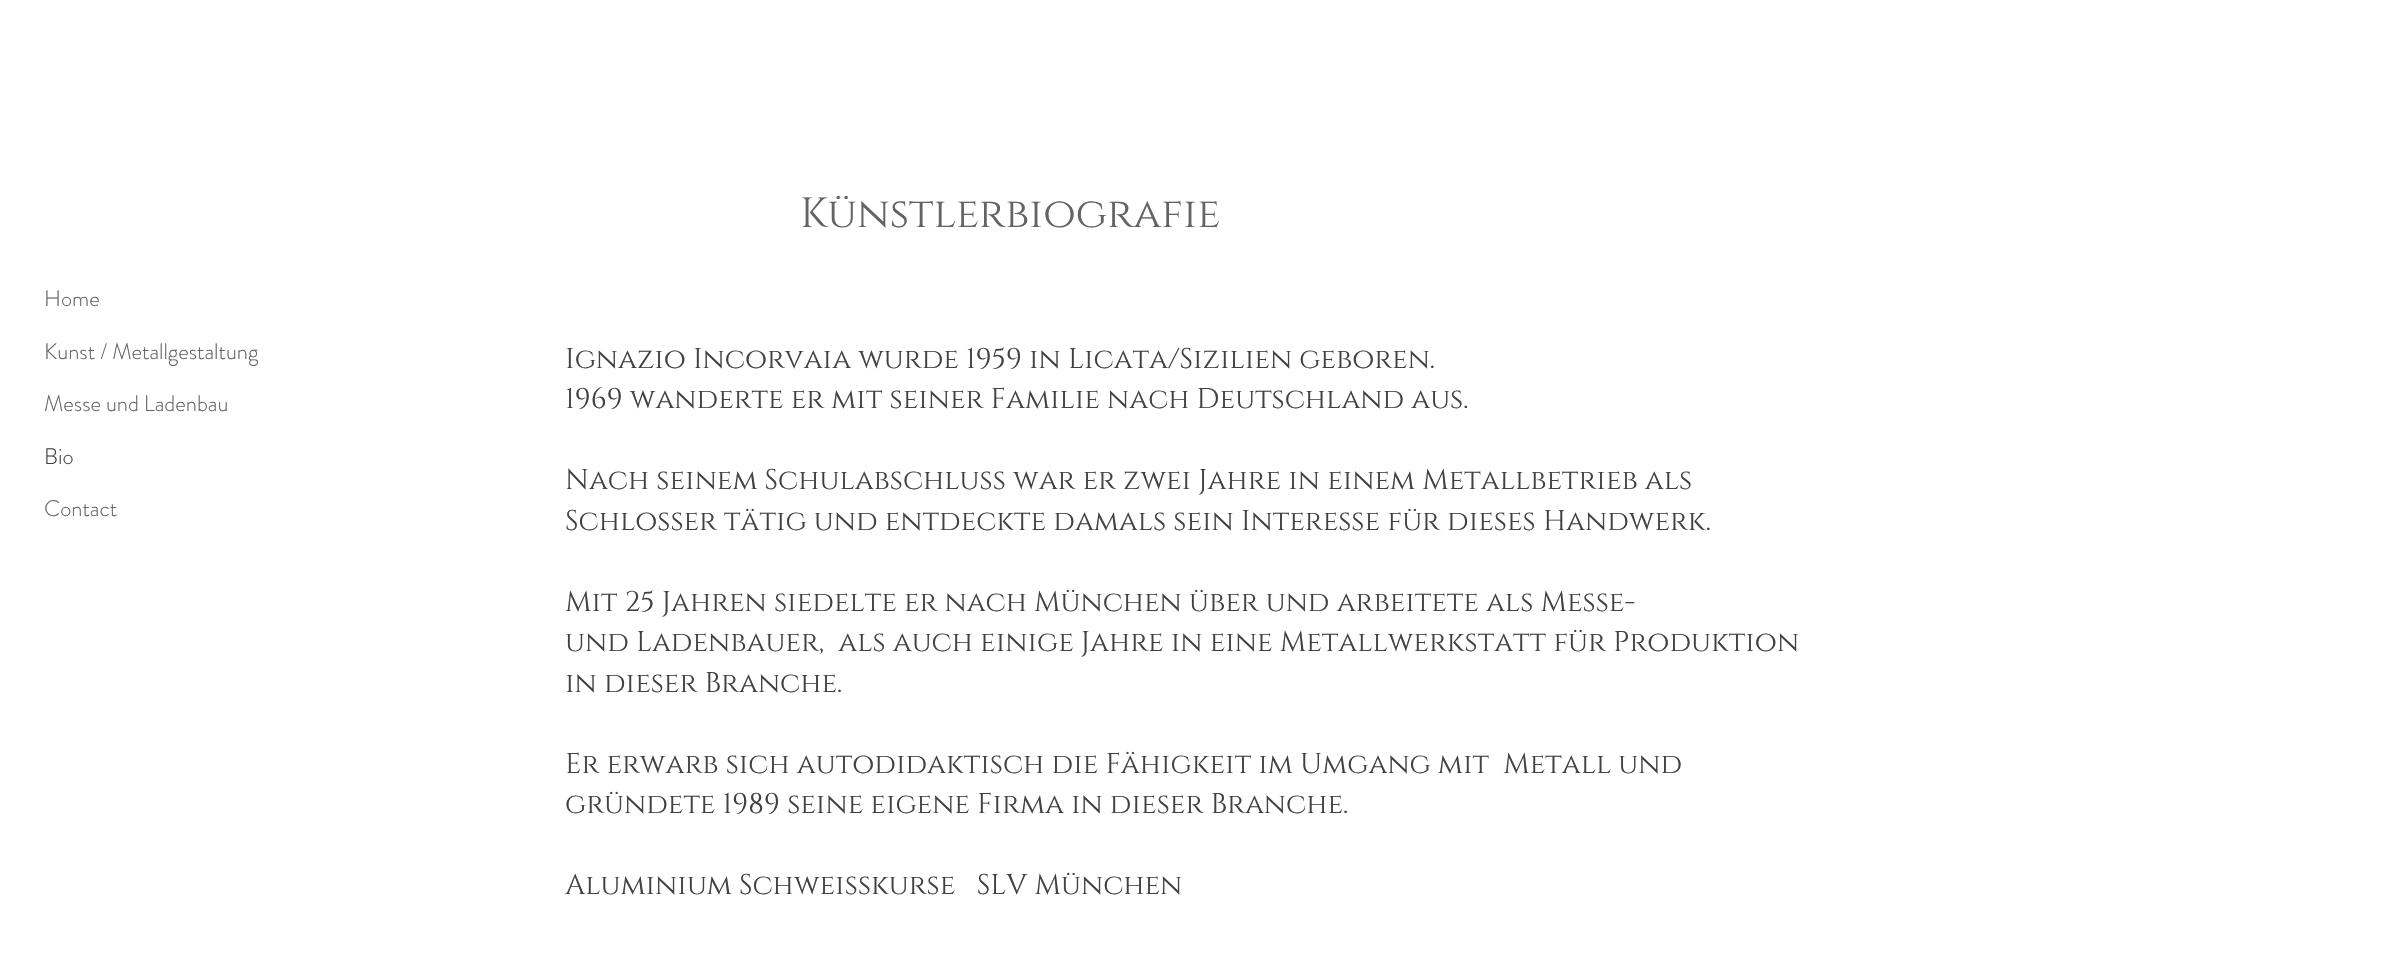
void draw(SkCanvas* canvas) {
    SkPaint paint;
    paint.setAntiAlias(true);
    canvas->clear(0xFFFFFFFF);
    SkFont font1(fontMgr->matchFamilyStyle("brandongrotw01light", SkFontStyle(300, SkFontStyle::kNormal_Width, SkFontStyle::kUpright_Slant)), 22.5f);
    font1.setSubpixel(true);
    paint.setColor(0xFF636363);
    canvas->drawString("Home", 44, 306, font1, paint);
    canvas->drawString("Kunst / Metallgestaltung", 44, 359, font1, paint);
    canvas->drawString("Messe und Ladenbau", 44, 411, font1, paint);
    paint.setColor(0xFF414141);
    canvas->drawString("Bio", 44, 464, font1, paint);
    paint.setColor(0xFF636363);
    canvas->drawString("Contact", 44, 516, font1, paint);
    SkFont font2(fontMgr->matchFamilyStyle("Cinzel", SkFontStyle::Normal()), 42);
    font2.setSubpixel(true);
    canvas->drawString("Künstlerbiografie", 800, 227, font2, paint);
    SkFont font3(fontMgr->matchFamilyStyle("Cinzel", SkFontStyle::Normal()), 28.5f);
    font3.setSubpixel(true);
    paint.setColor(0xFF414141);
    canvas->drawString("Ignazio Incorvaia wurde 1959 in Licata/Sizilien geboren.", 565, 368, font3, paint);
    canvas->drawString("1969 wanderte er mit seiner Familie nach Deutschland aus.", 565, 408, font3, paint);
    canvas->drawString("Nach seinem Schulabschluss war er zwei Jahre in einem Metallbetrieb als", 565, 489, font3, paint);
    canvas->drawString("Schlosser tätig und entdeckte damals sein Interesse für dieses Handwerk.", 565, 530, font3, paint);
    canvas->drawString("Mit 25 Jahren siedelte er nach München über und arbeitete als Messe-", 565, 611, font3, paint);
    canvas->drawString("und Ladenbauer,  als auch einige Jahre in eine Metallwerkstatt für Produktion", 565, 651, font3, paint);
    canvas->drawString("in dieser Branche.", 565, 692, font3, paint);
    canvas->drawString("Er erwarb sich autodidaktisch die Fähigkeit im Umgang mit  Metall und", 565, 773, font3, paint);
    canvas->drawString("gründete 1989 seine eigene Firma in dieser Branche.", 565, 813, font3, paint);
    canvas->drawString("Aluminium Schweißkurse   SLV München", 565, 894, font3, paint);
}
